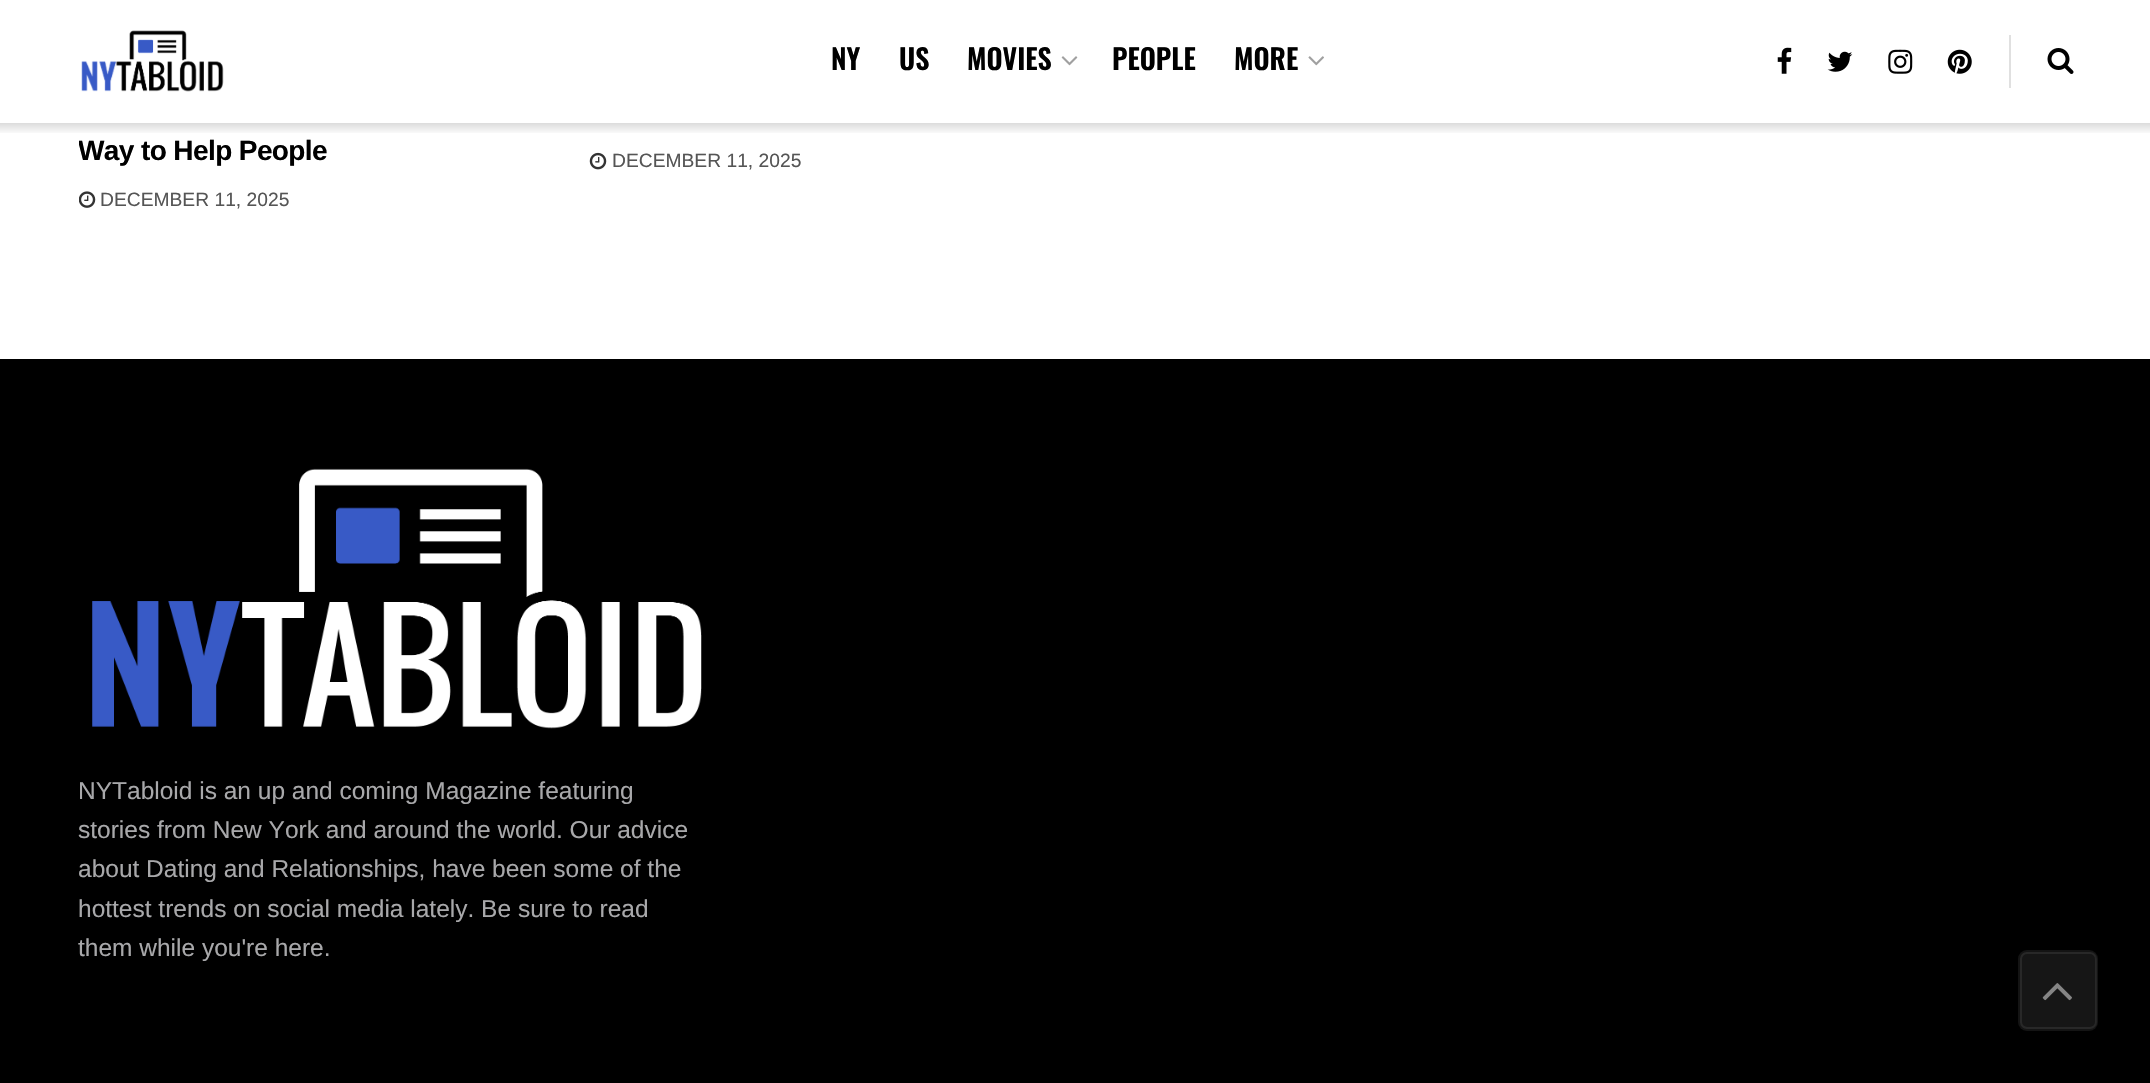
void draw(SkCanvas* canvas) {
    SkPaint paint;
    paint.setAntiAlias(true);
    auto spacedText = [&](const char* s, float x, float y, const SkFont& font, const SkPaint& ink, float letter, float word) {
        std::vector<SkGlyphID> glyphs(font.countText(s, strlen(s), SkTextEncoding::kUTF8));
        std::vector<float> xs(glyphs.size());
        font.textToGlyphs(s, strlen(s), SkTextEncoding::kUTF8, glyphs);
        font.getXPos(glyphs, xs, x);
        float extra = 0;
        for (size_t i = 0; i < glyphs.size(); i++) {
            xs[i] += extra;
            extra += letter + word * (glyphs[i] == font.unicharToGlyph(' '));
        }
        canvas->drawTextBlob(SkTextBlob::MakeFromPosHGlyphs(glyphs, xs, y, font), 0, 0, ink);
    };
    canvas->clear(0xFFFFFFFF);
    canvas->drawImageRect(SkImages::DeferredFromEncodedData(SkData::MakeFromFileName("img1.png")), SkRect::MakeXYWH(81, 30, 143, 62), SkSamplingOptions());
    SkFont font1(fontMgr->matchFamilyStyle("Oswald", SkFontStyle(600, SkFontStyle::kNormal_Width, SkFontStyle::kUpright_Slant)), 28);
    font1.setSubpixel(true);
    paint.setColor(0xFF000000);
    canvas->drawString("NY", 831, 70, font1, paint);
    canvas->drawString("US", 899, 70, font1, paint);
    canvas->drawString("MOVIES", 967, 70, font1, paint);
    canvas->drawImageRect(SkImages::DeferredFromEncodedData(SkData::MakeFromFileName("img2.png")), SkRect::MakeXYWH(1061, 56, 17, 10), SkSamplingOptions());
    canvas->drawString("PEOPLE", 1112, 70, font1, paint);
    canvas->drawString("MORE", 1234, 70, font1, paint);
    canvas->drawImageRect(SkImages::DeferredFromEncodedData(SkData::MakeFromFileName("img3.png")), SkRect::MakeXYWH(1308, 56, 16, 10), SkSamplingOptions());
    canvas->drawImageRect(SkImages::DeferredFromEncodedData(SkData::MakeFromFileName("img4.png")), SkRect::MakeXYWH(1777, 47, 15, 27), SkSamplingOptions());
    canvas->drawImageRect(SkImages::DeferredFromEncodedData(SkData::MakeFromFileName("img5.png")), SkRect::MakeXYWH(1827, 51, 26, 21), SkSamplingOptions());
    canvas->drawImageRect(SkImages::DeferredFromEncodedData(SkData::MakeFromFileName("img6.png")), SkRect::MakeXYWH(1888, 49, 25, 25), SkSamplingOptions());
    canvas->drawImageRect(SkImages::DeferredFromEncodedData(SkData::MakeFromFileName("img7.png")), SkRect::MakeXYWH(1947, 49, 25, 25), SkSamplingOptions());
    paint.setColor(0xFFE0E0E0);
    canvas->drawRect(SkRect::MakeXYWH(2009, 35, 2, 53), paint);
    canvas->drawImageRect(SkImages::DeferredFromEncodedData(SkData::MakeFromFileName("img8.png")), SkRect::MakeXYWH(2047, 48, 27, 26), SkSamplingOptions());
    {
        const SkColor colors[] = {0x26000000, 0x00000000};
        const float stops[] = {0, 1};
        const SkPoint ends[] = {{1075, 122}, {1075, 135}};
        paint.setShader(SkGradientShader::MakeLinear(ends, colors, stops, 2, SkTileMode::kClamp));
        paint.setAlpha(255);
    }
    canvas->drawRect(SkRect::MakeXYWH(0, 123, 2150, 10), paint);
    canvas->save();
    canvas->clipRect(SkRect::MakeXYWH(79, 0, 1995, 263));
    SkFont font2(fontMgr->matchFamilyStyle("Liberation Sans", SkFontStyle::Bold()), 28);
    font2.setSubpixel(true);
    paint.setShader(nullptr);
    paint.setColor(0xFF000000);
    spacedText("Way to Help People", 78, 160, font2, paint, -0.6f, 0);
    canvas->restore();
    canvas->drawImageRect(SkImages::DeferredFromEncodedData(SkData::MakeFromFileName("img9.png")), SkRect::MakeXYWH(79, 191, 17, 17), SkSamplingOptions());
    SkFont font3(fontMgr->matchFamilyStyle("Liberation Sans", SkFontStyle::Normal()), 19.25f);
    font3.setSubpixel(true);
    paint.setColor(0xFF555555);
    canvas->drawString("DECEMBER 11, 2025", 100, 206, font3, paint);
    canvas->drawImageRect(SkImages::DeferredFromEncodedData(SkData::MakeFromFileName("img10.png")), SkRect::MakeXYWH(589, 152, 18, 18), SkSamplingOptions());
    canvas->drawString("DECEMBER 11, 2025", 612, 167, font3, paint);
    paint.setColor(0xFF000000);
    canvas->drawRect(SkRect::MakeXYWH(0, 359, 2150, 724), paint);
    canvas->drawImageRect(SkImages::DeferredFromEncodedData(SkData::MakeFromFileName("img11.png")), SkRect::MakeXYWH(92, 468, 610, 261), SkSamplingOptions());
    SkFont font4(fontMgr->matchFamilyStyle("Liberation Sans", SkFontStyle::Normal()), 24.5f);
    font4.setSubpixel(true);
    paint.setColor(0xFFA8A8AA);
    canvas->drawString("NYTabloid is an up and coming Magazine featuring", 78, 799, font4, paint);
    canvas->drawString("stories from New York and around the world. Our advice", 78, 838, font4, paint);
    canvas->drawString("about Dating and Relationships, have been some of the", 78, 877, font4, paint);
    canvas->drawString("hottest trends on social media lately. Be sure to read", 78, 917, font4, paint);
    canvas->drawString("them while you're here.", 78, 956, font4, paint);
    paint.setColor(0xFF161616);
    canvas->drawRoundRect(SkRect::MakeXYWH(2018, 950, 80, 81), 9, 9, paint);
    paint.setStyle(SkPaint::kStroke_Style);
    paint.setStrokeWidth(2);
    paint.setColor(0xFF282828);
    canvas->drawRoundRect(SkRect::MakeXYWH(2021, 953, 75, 75), 6, 6, paint);
    paint.setColor(0x1C000000);
    canvas->drawRoundRect(SkRect::MakeXYWH(2019, 951, 78, 79), 8, 8, paint);
    canvas->drawImageRect(SkImages::DeferredFromEncodedData(SkData::MakeFromFileName("img12.png")), SkRect::MakeXYWH(2042, 983, 30, 18), SkSamplingOptions());
}
